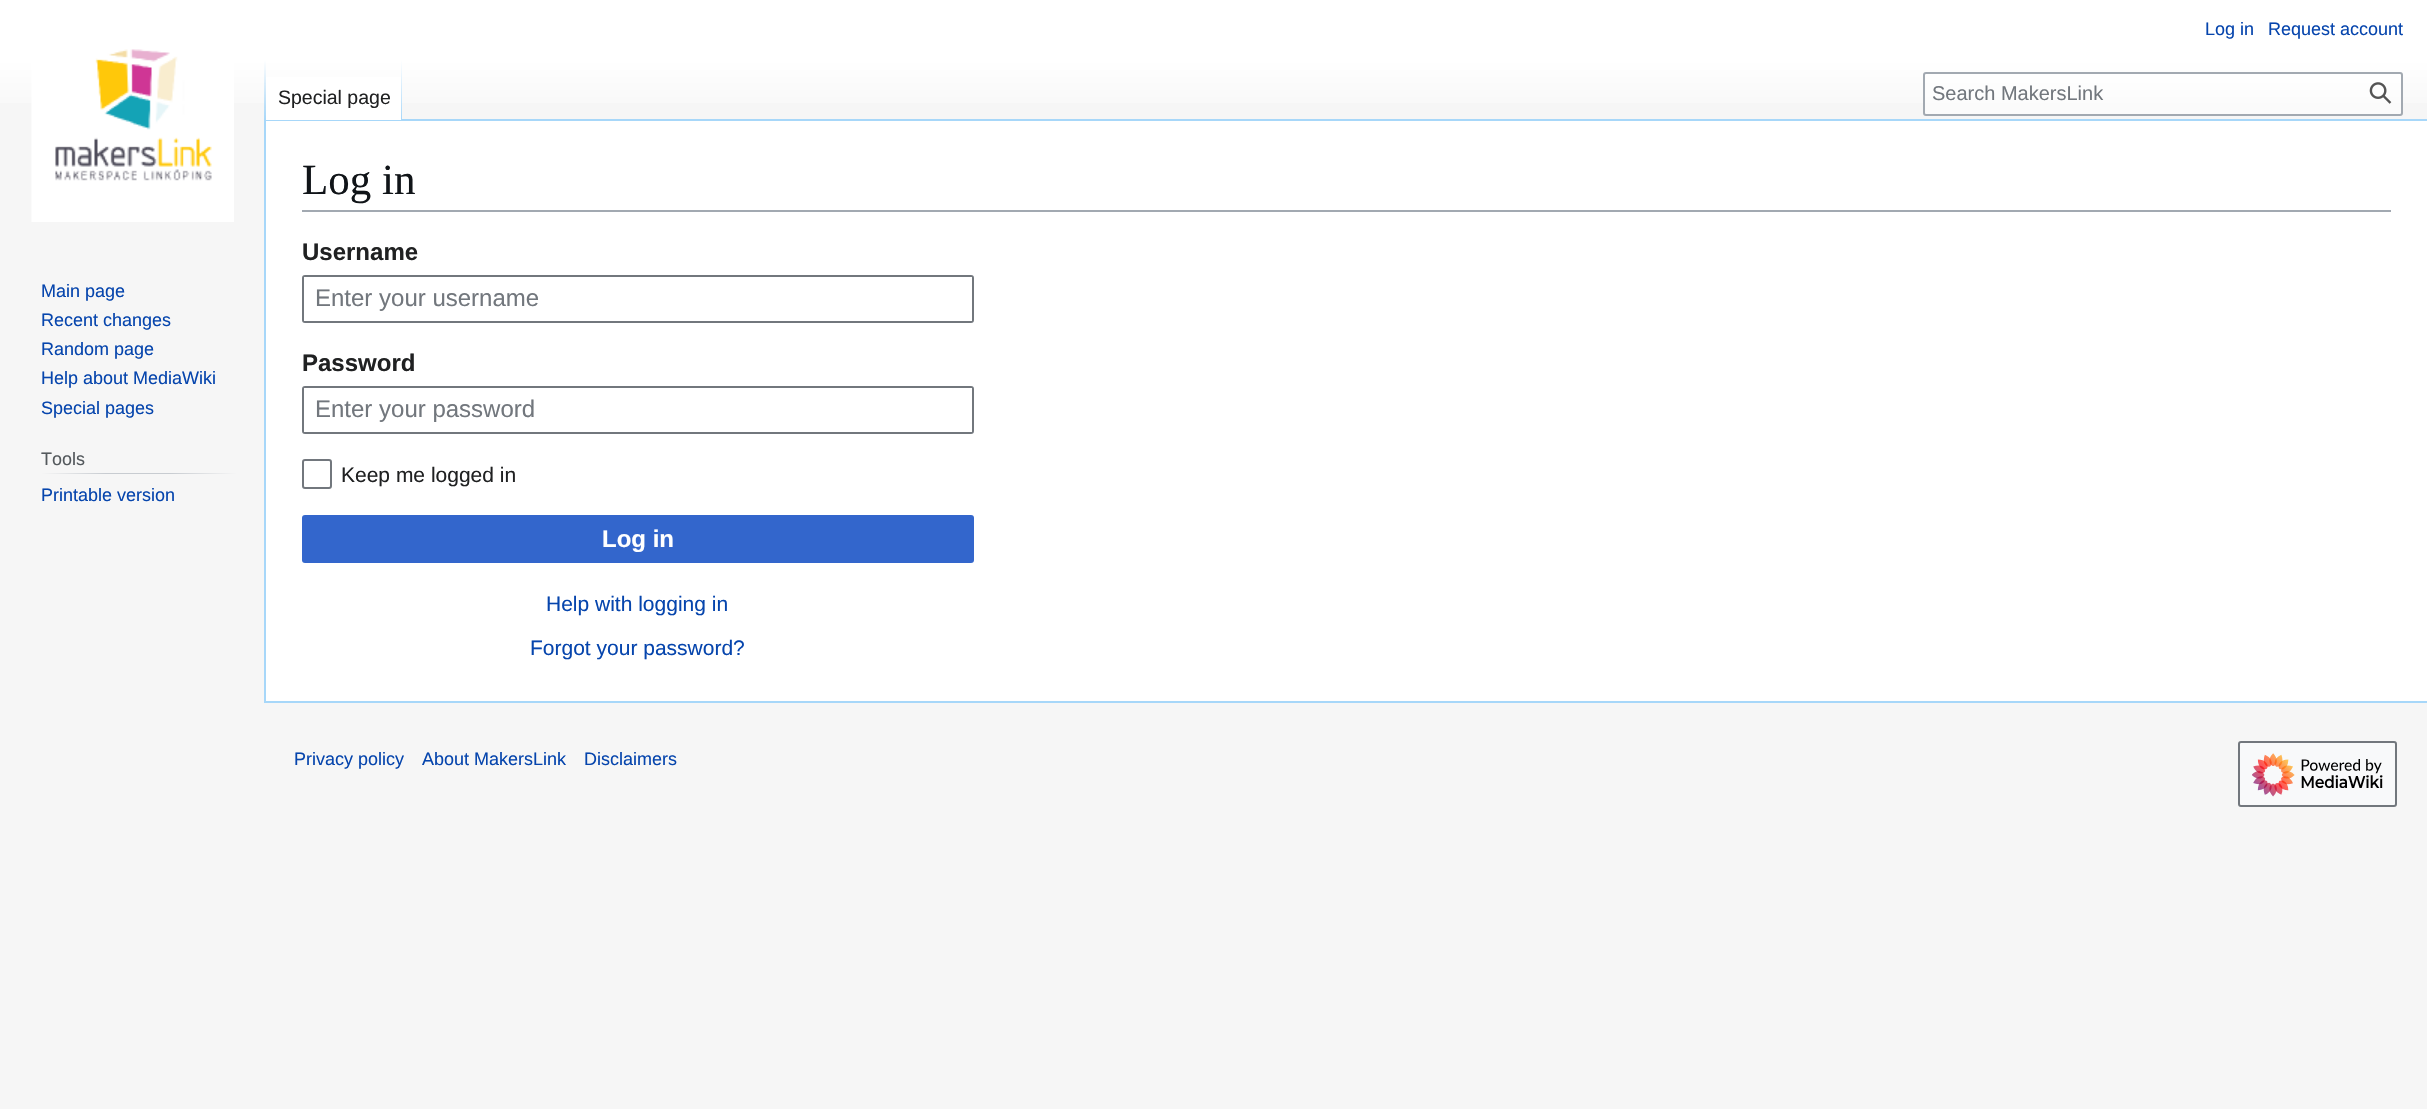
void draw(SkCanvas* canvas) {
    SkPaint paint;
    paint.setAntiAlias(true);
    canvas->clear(0xFFF6F6F6);
    {
        const SkColor colors[] = {0xFFFFFFFF, 0xFFF6F6F6};
        const float stops[] = {0.5f, 1};
        const SkPoint ends[] = {{1214, 0}, {1214, 120}};
        paint.setShader(SkGradientShader::MakeLinear(ends, colors, stops, 2, SkTileMode::kClamp));
        paint.setAlpha(255);
    }
    canvas->drawRect(SkRect::MakeXYWH(0, 0, 2427, 103), paint);
    SkFont font1(fontMgr->matchFamilyStyle("Liberation Sans", SkFontStyle::Normal()), 18);
    font1.setSubpixel(true);
    paint.setShader(nullptr);
    paint.setColor(0xFF0645AD);
    canvas->drawString("Log in", 2205, 35, font1, paint);
    canvas->drawString("Request account", 2268, 35, font1, paint);
    paint.setColor(0xFFA7D7F9);
    canvas->drawRect(SkRect::MakeXYWH(264, 119, 2163, 2), paint);
    canvas->drawRect(SkRect::MakeXYWH(264, 701, 2163, 2), paint);
    canvas->drawRect(SkRect::MakeXYWH(264, 119, 2, 583), paint);
    {
        const SkColor colors[] = {0x00A7D7F9, 0xFFA7D7F9};
        const float stops[] = {0, 1};
        const SkPoint ends[] = {{265, 60}, {265, 120}};
        paint.setShader(SkGradientShader::MakeLinear(ends, colors, stops, 2, SkTileMode::kClamp));
        paint.setAlpha(255);
    }
    canvas->drawRect(SkRect::MakeXYWH(264, 60, 2, 60), paint);
    paint.setShader(nullptr);
    paint.setColor(0xFFFFFFFF);
    canvas->drawRect(SkRect::MakeXYWH(266, 77, 135, 43), paint);
    {
        const SkColor colors[] = {0xFFFFFFFF, 0xFFA7D7F9};
        const float stops[] = {0, 1};
        const SkPoint ends[] = {{401, 60}, {401, 120}};
        paint.setShader(SkGradientShader::MakeLinear(ends, colors, stops, 2, SkTileMode::kClamp));
        paint.setAlpha(255);
    }
    canvas->drawRect(SkRect::MakeXYWH(401, 60, 1, 60), paint);
    SkFont font2(fontMgr->matchFamilyStyle("Liberation Sans", SkFontStyle::Normal()), 19.5f);
    font2.setSubpixel(true);
    paint.setShader(nullptr);
    paint.setColor(0xFF202122);
    canvas->drawString("Special page", 278, 104, font2, paint);
    paint.setColor(0x80FFFFFF);
    canvas->drawRoundRect(SkRect::MakeXYWH(1924, 73, 478, 42), 2, 2, paint);
    paint.setStyle(SkPaint::kStroke_Style);
    paint.setStrokeWidth(2);
    paint.setColor(0xFFA2A9B1);
    canvas->drawRoundRect(SkRect::MakeXYWH(1924, 73, 478, 42), 2, 2, paint);
    SkFont font3(fontMgr->matchFamilyStyle("Liberation Sans", SkFontStyle::Normal()), 20);
    font3.setSubpixel(true);
    paint.setStyle(SkPaint::kFill_Style);
    paint.setColor(0xFF72777D);
    canvas->drawString("Search MakersLink", 1932, 100, font3, paint);
    canvas->drawImageRect(SkImages::DeferredFromEncodedData(SkData::MakeFromFileName("img1.png")), SkRect::MakeXYWH(2369, 82, 23, 22), SkSamplingOptions());
    canvas->drawImageRect(SkImages::DeferredFromEncodedData(SkData::MakeFromFileName("img2.png")), SkRect::MakeXYWH(31, 49, 203, 173), SkSamplingOptions());
    paint.setColor(0xFF0645AD);
    canvas->drawString("Main page", 41, 297, font1, paint);
    canvas->drawString("Recent changes", 41, 326, font1, paint);
    canvas->drawString("Random page", 41, 355, font1, paint);
    canvas->drawString("Help about MediaWiki", 41, 384, font1, paint);
    canvas->drawString("Special pages", 41, 414, font1, paint);
    {
        const SkColor colors[] = {0xFFF6F6F6, 0xFFC8CCD1, 0xFFC8CCD1, 0xFFF6F6F6};
        const float stops[] = {0, 0.33f, 0.66f, 1};
        const SkPoint ends[] = {{41, 473}, {237, 473}};
        paint.setShader(SkGradientShader::MakeLinear(ends, colors, stops, 4, SkTileMode::kClamp));
        paint.setAlpha(255);
    }
    canvas->drawRect(SkRect::MakeXYWH(41, 473, 196, 1), paint);
    paint.setShader(nullptr);
    paint.setColor(0xFF54595D);
    canvas->drawString("Tools", 41, 465, font1, paint);
    paint.setColor(0xFF0645AD);
    canvas->drawString("Printable version", 41, 501, font1, paint);
    paint.setColor(0xFFFFFFFF);
    canvas->drawRect(SkRect::MakeXYWH(266, 121, 2161, 580), paint);
    paint.setColor(0xFFA2A9B1);
    canvas->drawRect(SkRect::MakeXYWH(302, 210, 2089, 2), paint);
    SkFont font4(fontMgr->matchFamilyStyle("Liberation Serif", SkFontStyle::Normal()), 43);
    font4.setSubpixel(true);
    paint.setColor(0xFF101418);
    canvas->drawString("Log in", 302, 194, font4, paint);
    SkFont font5(fontMgr->matchFamilyStyle("Liberation Sans", SkFontStyle::Bold()), 24);
    font5.setSubpixel(true);
    paint.setColor(0xFF202122);
    canvas->drawString("Username", 302, 260, font5, paint);
    paint.setColor(0xFF72777D);
    canvas->drawPath(SkPathBuilder(SkPathFillType::kEvenOdd).moveTo(305, 275).cubicTo(303, 275, 302, 276, 302, 278).lineTo(302, 320).cubicTo(302, 322, 303, 323, 305, 323).lineTo(971, 323).cubicTo(973, 323, 974, 322, 974, 320).lineTo(974, 278).cubicTo(974, 276, 973, 275, 971, 275).close().moveTo(304, 277).lineTo(304, 321).lineTo(972, 321).lineTo(972, 277).close().detach(), paint);
    SkFont font6(fontMgr->matchFamilyStyle("Liberation Sans", SkFontStyle::Normal()), 24);
    font6.setSubpixel(true);
    canvas->drawString("Enter your username", 315, 306, font6, paint);
    paint.setColor(0xFF202122);
    canvas->drawString("Password", 302, 371, font5, paint);
    paint.setColor(0xFF72777D);
    canvas->drawPath(SkPathBuilder(SkPathFillType::kEvenOdd).moveTo(305, 386).cubicTo(303, 386, 302, 387, 302, 389).lineTo(302, 431).cubicTo(302, 433, 303, 434, 305, 434).lineTo(971, 434).cubicTo(973, 434, 974, 433, 974, 431).lineTo(974, 389).cubicTo(974, 387, 973, 386, 971, 386).close().moveTo(304, 388).lineTo(304, 432).lineTo(972, 432).lineTo(972, 388).close().detach(), paint);
    canvas->drawString("Enter your password", 315, 417, font6, paint);
    paint.setStyle(SkPaint::kStroke_Style);
    canvas->drawRoundRect(SkRect::MakeXYWH(303, 460, 28, 28), 2, 2, paint);
    SkFont font7(fontMgr->matchFamilyStyle("Liberation Sans", SkFontStyle::Normal()), 21);
    font7.setSubpixel(true);
    paint.setStyle(SkPaint::kFill_Style);
    paint.setColor(0xFF202122);
    canvas->drawString("Keep me logged in", 341, 482, font7, paint);
    paint.setColor(0xFF3366CC);
    canvas->drawRoundRect(SkRect::MakeXYWH(302, 515, 672, 48), 3, 3, paint);
    paint.setColor(0xFFFFFFFF);
    canvas->drawString("Log in", 602, 547, font5, paint);
    paint.setColor(0xFF0645AD);
    canvas->drawString("Help with logging in", 546, 611, font7, paint);
    canvas->drawString("Forgot your password?", 530, 655, font7, paint);
    canvas->drawString("Privacy policy", 294, 765, font1, paint);
    canvas->drawString("About MakersLink", 422, 765, font1, paint);
    canvas->drawString("Disclaimers", 584, 765, font1, paint);
    paint.setColor(0xFFF8F9FA);
    canvas->drawRoundRect(SkRect::MakeXYWH(2239, 742, 157, 64), 2, 2, paint);
    paint.setStyle(SkPaint::kStroke_Style);
    paint.setColor(0xFF72777D);
    canvas->drawRoundRect(SkRect::MakeXYWH(2239, 742, 157, 64), 2, 2, paint);
    canvas->drawImageRect(SkImages::DeferredFromEncodedData(SkData::MakeFromFileName("img3.png")), SkRect::MakeXYWH(2252, 753, 131, 44), SkSamplingOptions());
}
